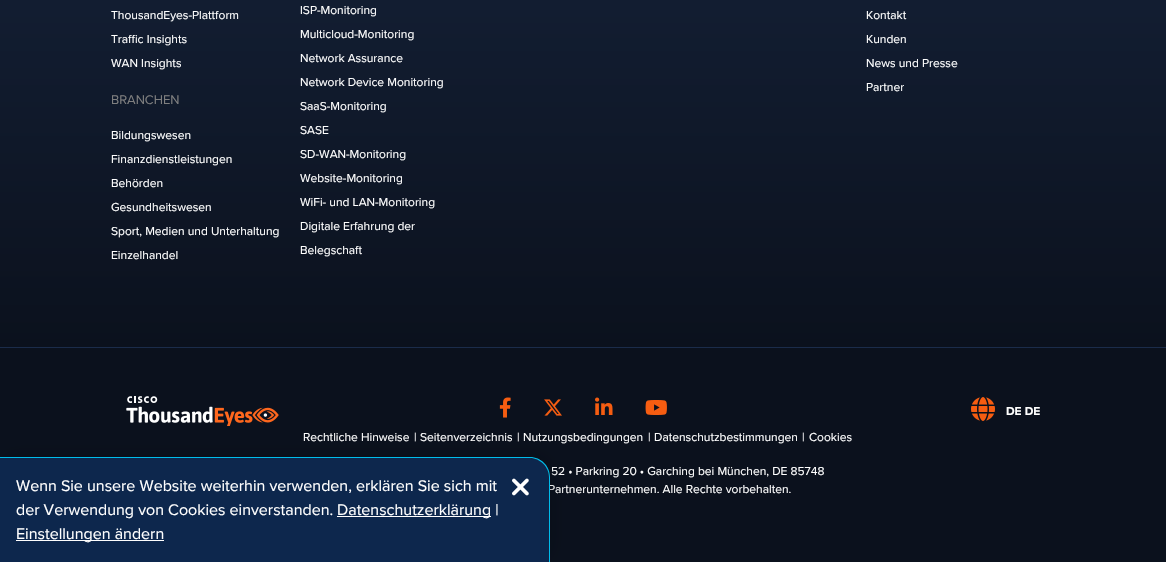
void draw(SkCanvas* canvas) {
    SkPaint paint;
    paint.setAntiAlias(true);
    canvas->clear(0xFFFFFFFF);
    {
        const SkColor colors[] = {0xFF1B2C4A, 0xFF0B111D};
        const float stops[] = {0, 1};
        const SkPoint ends[] = {{583, -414}, {583, 347}};
        paint.setShader(SkGradientShader::MakeLinear(ends, colors, stops, 2, SkTileMode::kClamp));
        paint.setAlpha(255);
    }
    canvas->drawRect(SkRect::MakeXYWH(0, 0, 1166, 347), paint);
    SkFont font1(fontMgr->matchFamilyStyle("Proxima Nova", SkFontStyle::Normal()), 12);
    font1.setSubpixel(true);
    paint.setShader(nullptr);
    paint.setColor(0xFFFFFFFF);
    canvas->drawString("ThousandEyes-Plattform", 111, 19, font1, paint);
    canvas->drawString("Traffic Insights", 111, 43, font1, paint);
    canvas->drawString("WAN Insights", 111, 67, font1, paint);
    SkFont font2(fontMgr->matchFamilyStyle("Proxima Nova", SkFontStyle::Normal()), 13);
    font2.setSubpixel(true);
    paint.setColor(0xFF7F7F7F);
    canvas->drawString("BRANCHEN", 111, 104, font2, paint);
    paint.setColor(0xFFFFFFFF);
    canvas->drawString("Bildungswesen", 111, 139, font1, paint);
    canvas->drawString("Finanzdienstleistungen", 111, 163, font1, paint);
    canvas->drawString("Behörden", 111, 187, font1, paint);
    canvas->drawString("Gesundheitswesen", 111, 211, font1, paint);
    canvas->drawString("Sport, Medien und Unterhaltung", 111, 235, font1, paint);
    canvas->drawString("Einzelhandel", 111, 259, font1, paint);
    canvas->drawString("ISP-Monitoring", 300, 14, font1, paint);
    canvas->drawString("Multicloud-Monitoring", 300, 38, font1, paint);
    canvas->drawString("Network Assurance", 300, 62, font1, paint);
    canvas->drawString("Network Device Monitoring", 300, 86, font1, paint);
    canvas->drawString("SaaS-Monitoring", 300, 110, font1, paint);
    canvas->drawString("SASE", 300, 134, font1, paint);
    canvas->drawString("SD-WAN-Monitoring", 300, 158, font1, paint);
    canvas->drawString("Website-Monitoring", 300, 182, font1, paint);
    canvas->drawString("WiFi- und LAN-Monitoring", 300, 206, font1, paint);
    canvas->drawString("Digitale Erfahrung der", 300, 230, font1, paint);
    canvas->drawString("Belegschaft", 300, 254, font1, paint);
    canvas->drawString("Kontakt", 866, 19, font1, paint);
    canvas->drawString("Kunden", 866, 43, font1, paint);
    canvas->drawString("News und Presse", 866, 67, font1, paint);
    canvas->drawString("Partner", 866, 91, font1, paint);
    paint.setColor(0xFF0B111D);
    canvas->drawRect(SkRect::MakeXYWH(0, 348, 1166, 214), paint);
    paint.setColor(0xFF1B2C4A);
    canvas->drawRect(SkRect::MakeXYWH(0, 347, 1166, 1), paint);
    canvas->drawImageRect(SkImages::DeferredFromEncodedData(SkData::MakeFromFileName("img1.png")), SkRect::MakeXYWH(126, 396, 153, 30), SkSamplingOptions());
    canvas->drawImageRect(SkImages::DeferredFromEncodedData(SkData::MakeFromFileName("img2.png")), SkRect::MakeXYWH(971, 397, 24, 24), SkSamplingOptions());
    SkFont font3(fontMgr->matchFamilyStyle("Proxima Nova", SkFontStyle::Bold()), 12);
    font3.setSubpixel(true);
    paint.setColor(0xFFFFFFFF);
    canvas->drawString("DE DE", 1006, 415, font3, paint);
    canvas->drawImageRect(SkImages::DeferredFromEncodedData(SkData::MakeFromFileName("img3.png")), SkRect::MakeXYWH(499, 397, 12, 21), SkSamplingOptions());
    canvas->drawImageRect(SkImages::DeferredFromEncodedData(SkData::MakeFromFileName("img4.png")), SkRect::MakeXYWH(544, 399, 18, 17), SkSamplingOptions());
    canvas->drawImageRect(SkImages::DeferredFromEncodedData(SkData::MakeFromFileName("img5.png")), SkRect::MakeXYWH(595, 397, 18, 18), SkSamplingOptions());
    canvas->drawImageRect(SkImages::DeferredFromEncodedData(SkData::MakeFromFileName("img6.png")), SkRect::MakeXYWH(645, 400, 22, 15), SkSamplingOptions());
    canvas->drawString("Rechtliche Hinweise", 303, 441, font1, paint);
    canvas->drawString("|", 414, 441, font1, paint);
    canvas->drawString("Seitenverzeichnis", 420, 441, font1, paint);
    canvas->drawString("|", 517, 441, font1, paint);
    canvas->drawString("Nutzungsbedingungen", 523, 441, font1, paint);
    canvas->drawString("|", 648, 441, font1, paint);
    canvas->drawString("Datenschutzbestimmungen", 654, 441, font1, paint);
    canvas->drawString("|", 802, 441, font1, paint);
    canvas->drawString("Cookies", 809, 441, font1, paint);
    canvas->drawString("52 • Parkring 20 • Garching bei München, DE 85748", 551, 475, font1, paint);
    canvas->drawString("Partnerunternehmen. Alle Rechte vorbehalten.", 548, 493, font1, paint);
    paint.setColor(0x33000000);
    paint.setMaskFilter(SkMaskFilter::MakeBlur(kNormal_SkBlurStyle, 9));
    canvas->drawRoundRect(SkRect::MakeXYWH(0, 457, 550, 105), 20, 20, paint);
    paint.setMaskFilter(nullptr);
    paint.setColor(0xFF0D274D);
    canvas->drawPath(SkPathBuilder().moveTo(0, 458).lineTo(530, 458).cubicTo(540.5f, 458, 549, 466.5f, 549, 477).lineTo(549, 562).lineTo(0, 562).close().detach(), paint);
    paint.setColor(0xFF00BCEB);
    canvas->drawPath(SkPathBuilder(SkPathFillType::kEvenOdd).moveTo(0, 457).lineTo(530, 457).cubicTo(541, 457, 550, 466, 550, 477).lineTo(550, 562).lineTo(0, 562).close().moveTo(0, 458).lineTo(530, 458).cubicTo(540, 458, 549, 467, 549, 477).lineTo(549, 562).lineTo(0, 562).close().detach(), paint);
    SkFont font4(fontMgr->matchFamilyStyle("Proxima Nova", SkFontStyle::Normal()), 16);
    font4.setSubpixel(true);
    paint.setColor(0xFFFFFFFF);
    canvas->drawString("Wenn Sie unsere Website weiterhin verwenden, erklären Sie sich mit", 16, 491, font4, paint);
    canvas->drawString("der Verwendung von Cookies einverstanden.", 16, 515, font4, paint);
    canvas->drawRect(SkRect::MakeXYWH(337, 516, 154, 1), paint);
    canvas->drawString("Datenschutzerklärung |", 337, 515, font4, paint);
    canvas->drawRect(SkRect::MakeXYWH(16, 540, 148, 1), paint);
    canvas->drawString("Einstellungen ändern", 16, 539, font4, paint);
    canvas->drawImageRect(SkImages::DeferredFromEncodedData(SkData::MakeFromFileName("img7.png")), SkRect::MakeXYWH(512, 478, 17, 18), SkSamplingOptions());
}
